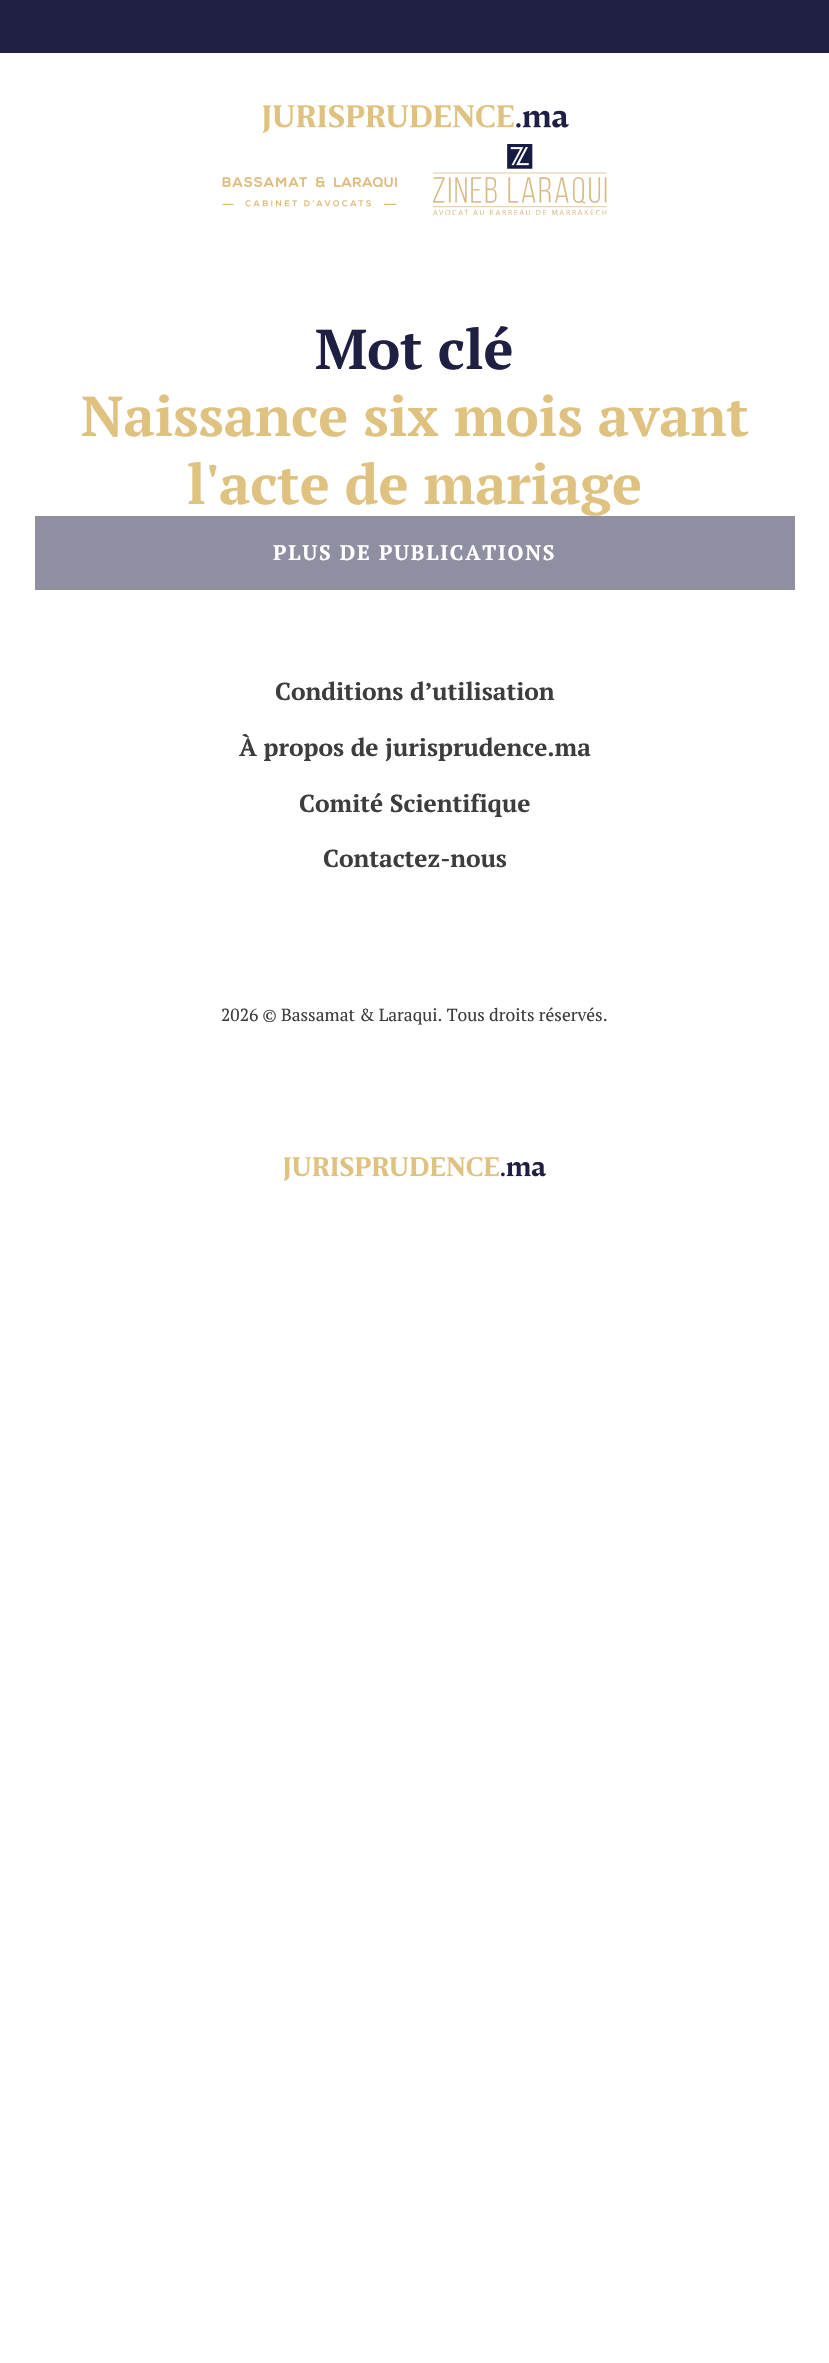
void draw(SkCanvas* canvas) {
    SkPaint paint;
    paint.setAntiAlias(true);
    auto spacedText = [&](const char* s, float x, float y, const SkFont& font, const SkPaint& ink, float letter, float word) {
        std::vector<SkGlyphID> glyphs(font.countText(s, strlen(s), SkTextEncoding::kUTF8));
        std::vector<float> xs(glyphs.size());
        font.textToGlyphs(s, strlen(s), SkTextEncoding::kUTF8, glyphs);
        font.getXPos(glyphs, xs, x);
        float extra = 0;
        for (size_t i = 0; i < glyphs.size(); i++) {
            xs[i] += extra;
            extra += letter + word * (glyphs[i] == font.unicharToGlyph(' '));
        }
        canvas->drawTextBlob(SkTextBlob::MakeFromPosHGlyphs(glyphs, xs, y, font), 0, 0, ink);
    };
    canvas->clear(0xFFFFFFFF);
    paint.setColor(0xFF1F1E43);
    canvas->drawRect(SkRect::MakeXYWH(0, 0, 829, 53), paint);
    canvas->drawImageRect(SkImages::DeferredFromEncodedData(SkData::MakeFromFileName("img1.png")), SkRect::MakeXYWH(263, 105, 306, 28), SkSamplingOptions());
    canvas->drawImageRect(SkImages::DeferredFromEncodedData(SkData::MakeFromFileName("img2.png")), SkRect::MakeXYWH(222, 177, 175, 30), SkSamplingOptions());
    canvas->drawImageRect(SkImages::DeferredFromEncodedData(SkData::MakeFromFileName("img3.png")), SkRect::MakeXYWH(433, 144, 174, 71), SkSamplingOptions());
    SkFont font1(fontMgr->matchFamilyStyle("PT Serif", SkFontStyle::Bold()), 56);
    font1.setSubpixel(true);
    canvas->drawString("Mot clé", 315, 369, font1, paint);
    paint.setColor(0xFFE0C280);
    canvas->drawString("Naissance six mois avant", 81, 436, font1, paint);
    canvas->drawString("l'acte de mariage", 187, 504, font1, paint);
    paint.setColor(0xFF8F8FA1);
    canvas->drawRect(SkRect::MakeXYWH(35, 516, 760, 74), paint);
    SkFont font2(fontMgr->matchFamilyStyle("PT Serif", SkFontStyle::Bold()), 21);
    font2.setSubpixel(true);
    paint.setColor(0xFFFFFFFF);
    spacedText("PLUS DE PUBLICATIONS", 273, 560, font2, paint, 1.75f, 0);
    SkFont font3(fontMgr->matchFamilyStyle("PT Serif", SkFontStyle::Bold()), 24.5f);
    font3.setSubpixel(true);
    paint.setColor(0xFF3D3D3D);
    canvas->drawString("Conditions d’utilisation", 275, 700, font3, paint);
    canvas->drawString("À propos de jurisprudence.ma", 239, 756, font3, paint);
    canvas->drawString("Comité Scientifique", 299, 812, font3, paint);
    canvas->drawString("Contactez-nous", 323, 867, font3, paint);
    SkFont font4(fontMgr->matchFamilyStyle("PT Serif", SkFontStyle::Normal()), 17.5f);
    font4.setSubpixel(true);
    canvas->drawString("2026 © Bassamat & Laraqui. Tous droits réservés.", 221, 1021, font4, paint);
    canvas->drawImageRect(SkImages::DeferredFromEncodedData(SkData::MakeFromFileName("img4.png")), SkRect::MakeXYWH(284, 1157, 262, 24), SkSamplingOptions());
}
